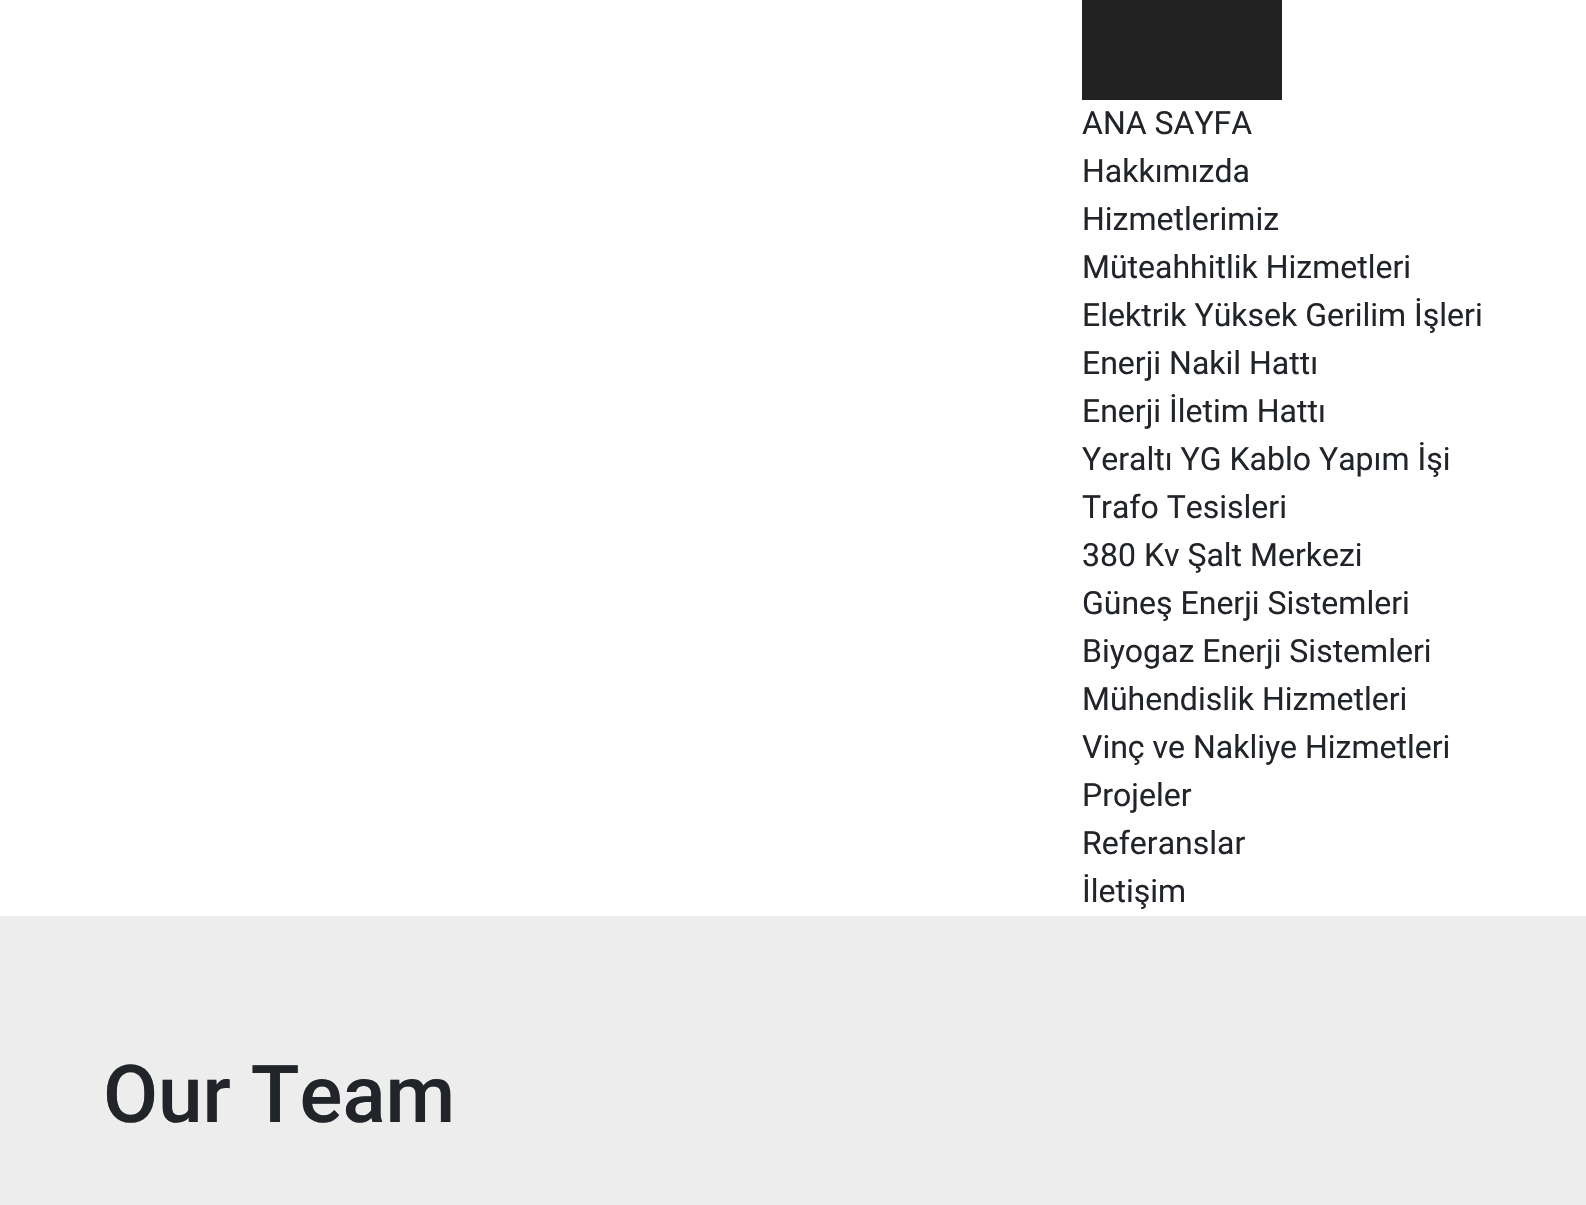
void draw(SkCanvas* canvas) {
    SkPaint paint;
    paint.setAntiAlias(true);
    canvas->clear(0xFFFFFFFF);
    paint.setColor(0xFF222222);
    canvas->drawRect(SkRect::MakeXYWH(1082, 0, 200, 100), paint);
    SkFont font1(fontMgr->matchFamilyStyle("Roboto", SkFontStyle::Normal()), 32);
    font1.setSubpixel(true);
    paint.setColor(0xFF212529);
    canvas->drawString("ANA SAYFA", 1082, 134, font1, paint);
    canvas->drawString("Hakkımızda", 1082, 182, font1, paint);
    canvas->drawString("Hizmetlerimiz", 1082, 230, font1, paint);
    canvas->drawString("Müteahhitlik Hizmetleri", 1082, 278, font1, paint);
    canvas->drawString("Elektrik Yüksek Gerilim İşleri", 1082, 326, font1, paint);
    canvas->drawString("Enerji Nakil Hattı", 1082, 374, font1, paint);
    canvas->drawString("Enerji İletim Hattı", 1082, 422, font1, paint);
    canvas->drawString("Yeraltı YG Kablo Yapım İşi", 1082, 470, font1, paint);
    canvas->drawString("Trafo Tesisleri", 1082, 518, font1, paint);
    canvas->drawString("380 Kv Şalt Merkezi", 1082, 566, font1, paint);
    canvas->drawString("Güneş Enerji Sistemleri", 1082, 614, font1, paint);
    canvas->drawString("Biyogaz Enerji Sistemleri", 1082, 662, font1, paint);
    canvas->drawString("Mühendislik Hizmetleri", 1082, 710, font1, paint);
    canvas->drawString("Vinç ve Nakliye Hizmetleri", 1082, 758, font1, paint);
    canvas->drawString("Projeler", 1082, 806, font1, paint);
    canvas->drawString("Referanslar", 1082, 854, font1, paint);
    canvas->drawString("İletişim", 1082, 902, font1, paint);
    paint.setColor(0xFFEDEDED);
    canvas->drawRect(SkRect::MakeXYWH(0, 916, 1586, 289), paint);
    SkFont font2(fontMgr->matchFamilyStyle("Roboto", SkFontStyle(500, SkFontStyle::kNormal_Width, SkFontStyle::kUpright_Slant)), 80);
    font2.setSubpixel(true);
    paint.setColor(0xFF212529);
    canvas->drawString("Our Team", 103, 1122, font2, paint);
}
